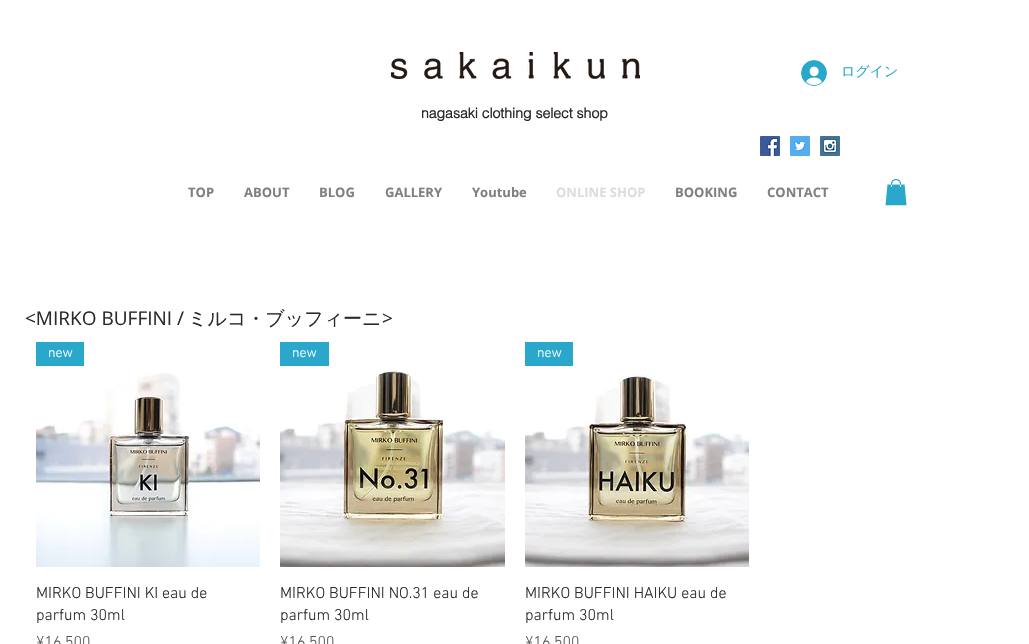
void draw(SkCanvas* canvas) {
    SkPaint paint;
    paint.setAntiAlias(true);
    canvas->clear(0xFFFFFFFF);
    canvas->drawImageRect(SkImages::DeferredFromEncodedData(SkData::MakeFromFileName("img1.png")), SkRect::MakeXYWH(391, 52, 249, 27), SkSamplingOptions());
    canvas->drawImageRect(SkImages::DeferredFromEncodedData(SkData::MakeFromFileName("img2.png")), SkRect::MakeXYWH(801, 60, 26, 26), SkSamplingOptions());
    SkFont font1(fontMgr->matchFamilyStyle("WenQuanYi Zen Hei", SkFontStyle(500, SkFontStyle::kNormal_Width, SkFontStyle::kUpright_Slant)), 14);
    font1.setSubpixel(true);
    paint.setColor(0xFF2AA8CC);
    canvas->drawString("ログイン", 841, 76, font1, paint);
    SkFont font2(fontMgr->matchFamilyStyle("helvetica", SkFontStyle::Bold()), 14);
    font2.setSubpixel(true);
    paint.setColor(0xFF2A2A2A);
    canvas->drawString("nagasaki clothing select shop", 421, 118, font2, paint);
    canvas->drawImageRect(SkImages::DeferredFromEncodedData(SkData::MakeFromFileName("img3.png")), SkRect::MakeXYWH(760, 136, 20, 20), SkSamplingOptions());
    canvas->drawImageRect(SkImages::DeferredFromEncodedData(SkData::MakeFromFileName("img4.png")), SkRect::MakeXYWH(790, 136, 20, 20), SkSamplingOptions());
    canvas->drawImageRect(SkImages::DeferredFromEncodedData(SkData::MakeFromFileName("img5.png")), SkRect::MakeXYWH(820, 136, 20, 20), SkSamplingOptions());
    SkFont font3(fontMgr->matchFamilyStyle("Open Sans", SkFontStyle::Bold()), 13);
    font3.setSubpixel(true);
    paint.setColor(0xFF808080);
    canvas->drawString("TOP", 188, 197, font3, paint);
    canvas->drawString("ABOUT", 244, 197, font3, paint);
    canvas->drawString("BLOG", 319, 197, font3, paint);
    canvas->drawString("GALLERY", 385, 197, font3, paint);
    canvas->drawString("Youtube", 472, 197, font3, paint);
    paint.setColor(0xFFDDDDDD);
    canvas->drawString("ONLINE SHOP", 556, 197, font3, paint);
    paint.setColor(0xFF808080);
    canvas->drawString("BOOKING", 675, 197, font3, paint);
    canvas->drawString("CONTACT", 767, 197, font3, paint);
    canvas->drawImageRect(SkImages::DeferredFromEncodedData(SkData::MakeFromFileName("img6.png")), SkRect::MakeXYWH(885, 179, 22, 27), SkSamplingOptions());
    SkFont font4(fontMgr->matchFamilyStyle("Open Sans", SkFontStyle::Normal()), 19);
    font4.setSubpixel(true);
    paint.setColor(0xFF2A2A2A);
    canvas->drawString("<MIRKO BUFFINI /", 25, 325, font4, paint);
    SkFont font5(fontMgr->matchFamilyStyle("WenQuanYi Zen Hei", SkFontStyle(500, SkFontStyle::kNormal_Width, SkFontStyle::kUpright_Slant)), 19);
    font5.setSubpixel(true);
    canvas->drawString("ミルコ・ブッフィーニ", 188, 325, font5, paint);
    canvas->drawString(">", 382, 325, font4, paint);
    paint.setColor(0xFF2AA8CC);
    canvas->drawRect(SkRect::MakeXYWH(36, 342, 48, 24), paint);
    SkFont font6(fontMgr->matchFamilyStyle("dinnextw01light", SkFontStyle(300, SkFontStyle::kNormal_Width, SkFontStyle::kUpright_Slant)), 14);
    font6.setSubpixel(true);
    paint.setColor(0xFFFFFFFF);
    canvas->drawString("new", 48, 357, font6, paint);
    canvas->drawImageRect(SkImages::DeferredFromEncodedData(SkData::MakeFromFileName("img7.png")), SkRect::MakeXYWH(36, 373, 224, 194), SkSamplingOptions());
    SkFont font7(fontMgr->matchFamilyStyle("dinnextw01light", SkFontStyle(300, SkFontStyle::kNormal_Width, SkFontStyle::kUpright_Slant)), 16);
    font7.setSubpixel(true);
    paint.setColor(0xFF2A2A2A);
    canvas->drawString("MIRKO BUFFINI KI eau de", 36, 598, font7, paint);
    canvas->drawString("parfum 30ml", 36, 620, font7, paint);
    paint.setColor(0xFF555555);
    canvas->drawString("¥16,500", 36, 647, font7, paint);
    paint.setColor(0xFF2AA8CC);
    canvas->drawRect(SkRect::MakeXYWH(280, 342, 49, 24), paint);
    paint.setColor(0xFFFFFFFF);
    canvas->drawString("new", 292, 357, font6, paint);
    canvas->drawImageRect(SkImages::DeferredFromEncodedData(SkData::MakeFromFileName("img8.png")), SkRect::MakeXYWH(280, 370, 225, 197), SkSamplingOptions());
    paint.setColor(0xFF2A2A2A);
    canvas->drawString("MIRKO BUFFINI NO.31 eau de", 280, 598, font7, paint);
    canvas->drawString("parfum 30ml", 280, 620, font7, paint);
    paint.setColor(0xFF555555);
    canvas->drawString("¥16,500", 280, 647, font7, paint);
    paint.setColor(0xFF2AA8CC);
    canvas->drawRect(SkRect::MakeXYWH(525, 342, 48, 24), paint);
    paint.setColor(0xFFFFFFFF);
    canvas->drawString("new", 537, 357, font6, paint);
    canvas->drawImageRect(SkImages::DeferredFromEncodedData(SkData::MakeFromFileName("img9.png")), SkRect::MakeXYWH(525, 374, 224, 193), SkSamplingOptions());
    paint.setColor(0xFF2A2A2A);
    canvas->drawString("MIRKO BUFFINI HAIKU eau de", 525, 598, font7, paint);
    canvas->drawString("parfum 30ml", 525, 620, font7, paint);
    paint.setColor(0xFF555555);
    canvas->drawString("¥16,500", 525, 647, font7, paint);
}
